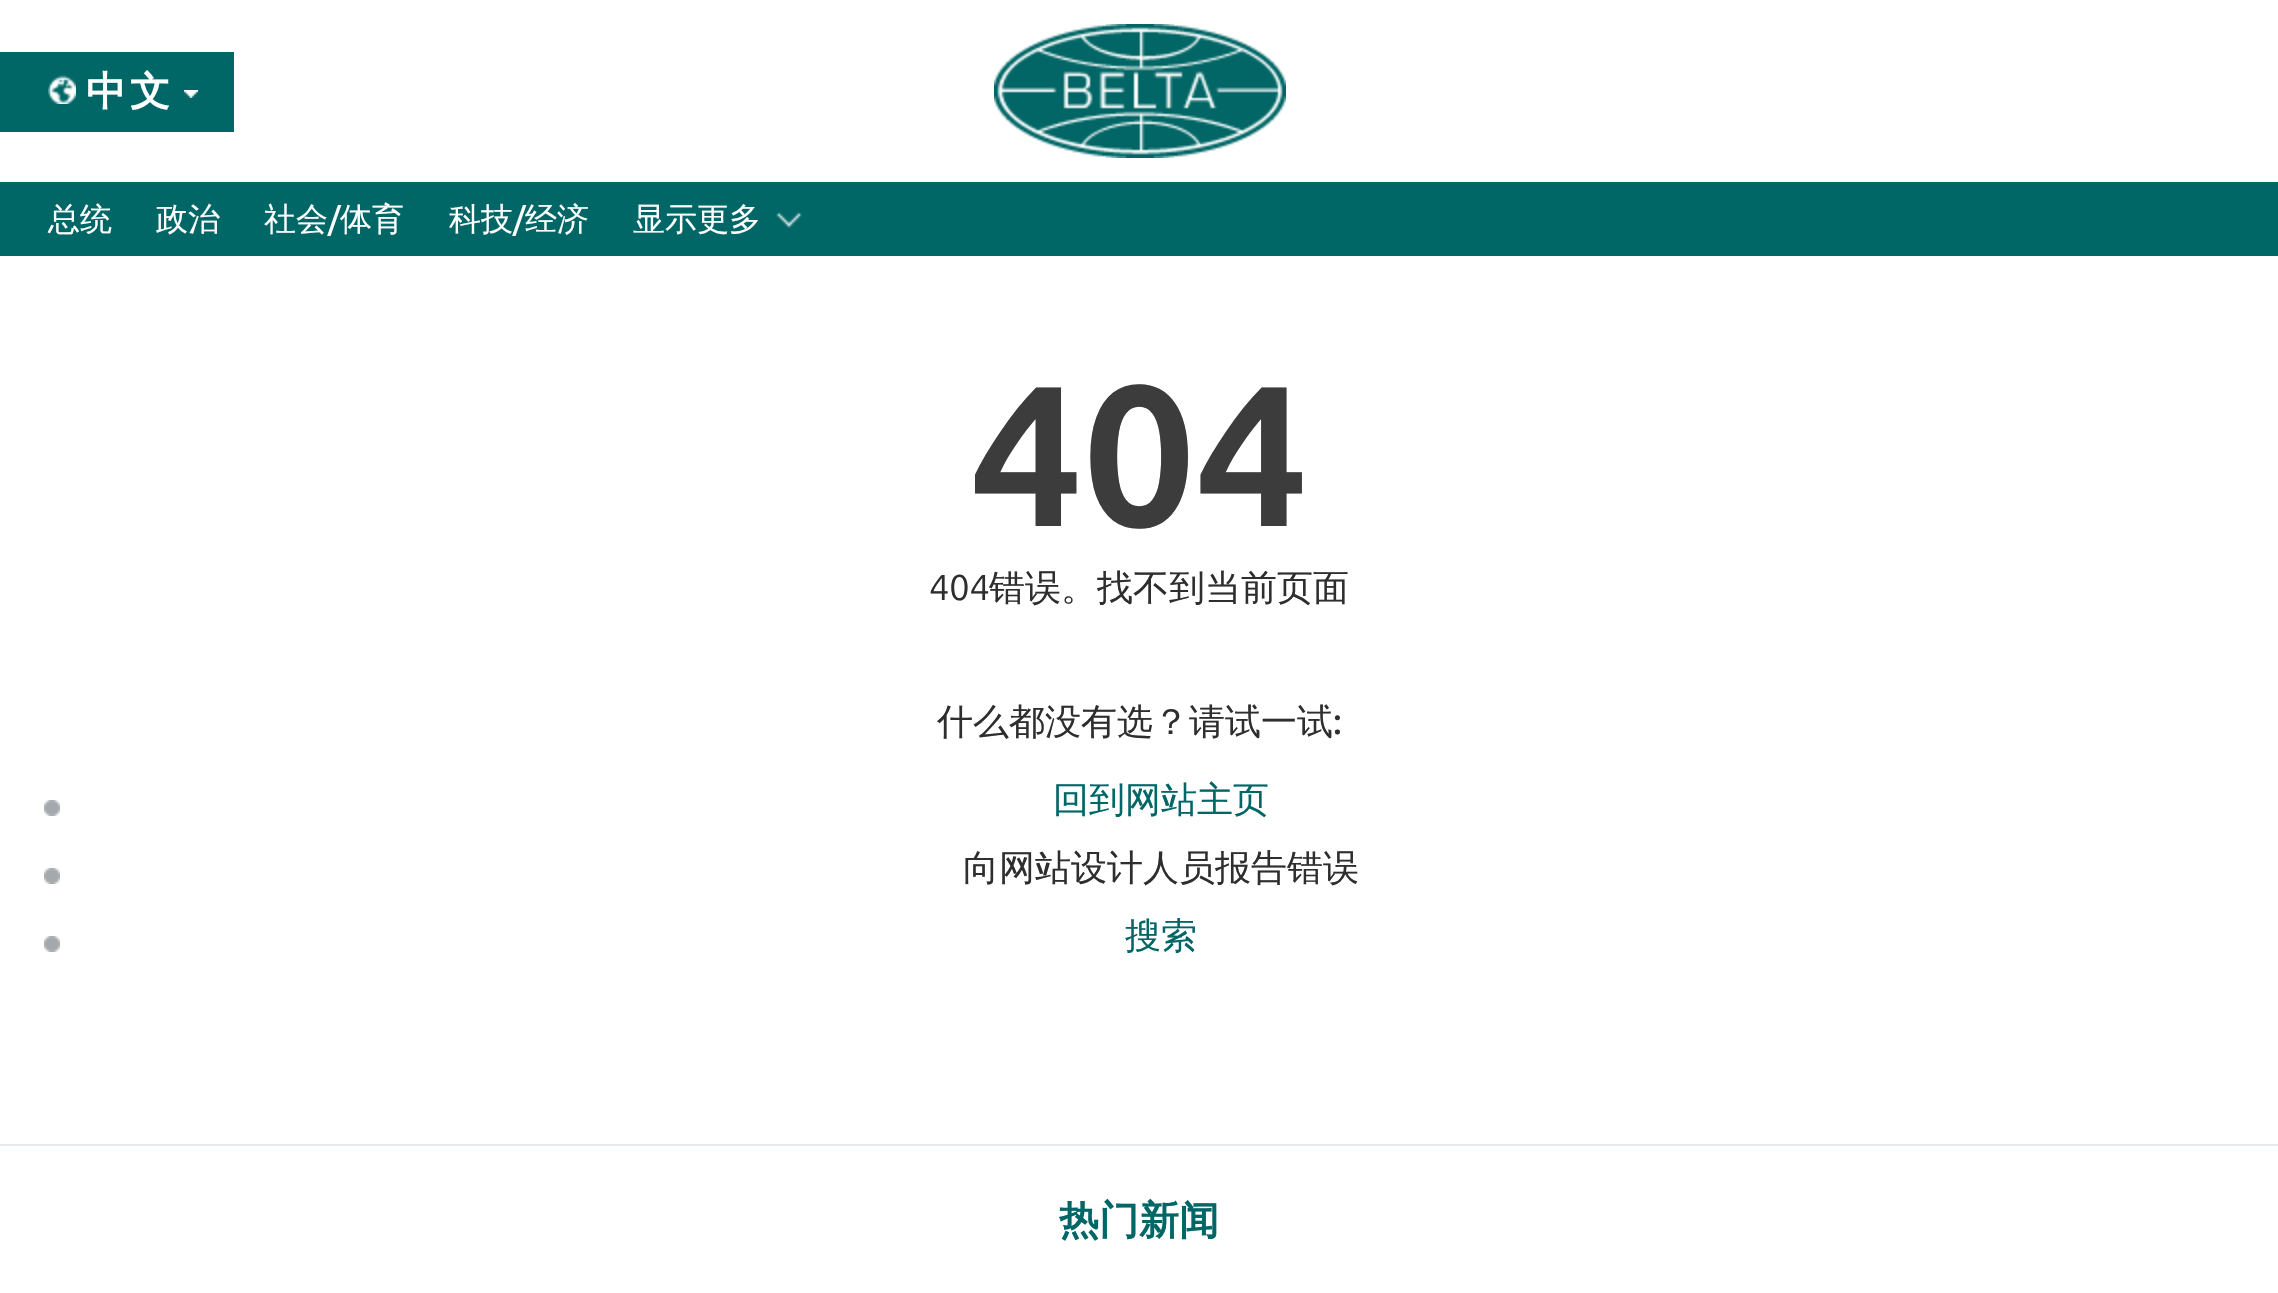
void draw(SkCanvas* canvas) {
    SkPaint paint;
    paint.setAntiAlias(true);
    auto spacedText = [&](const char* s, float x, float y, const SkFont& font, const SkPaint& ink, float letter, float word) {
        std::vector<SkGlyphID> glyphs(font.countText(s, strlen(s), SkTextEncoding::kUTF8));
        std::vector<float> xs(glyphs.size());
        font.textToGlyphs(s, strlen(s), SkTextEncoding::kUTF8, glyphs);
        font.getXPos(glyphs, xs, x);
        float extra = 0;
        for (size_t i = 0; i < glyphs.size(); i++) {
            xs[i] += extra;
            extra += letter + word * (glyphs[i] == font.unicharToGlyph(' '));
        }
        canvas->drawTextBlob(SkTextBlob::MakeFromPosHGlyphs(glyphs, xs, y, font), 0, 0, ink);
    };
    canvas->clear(0xFFFFFFFF);
    paint.setColor(0xFF006666);
    canvas->drawRect(SkRect::MakeXYWH(0, 52, 234, 80), paint);
    canvas->drawImageRect(SkImages::DeferredFromEncodedData(SkData::MakeFromFileName("img1.png")), SkRect::MakeXYWH(48, 75, 28, 29), SkSamplingOptions());
    SkFont font1(fontMgr->matchFamilyStyle("WenQuanYi Zen Hei", SkFontStyle::Bold()), 40);
    font1.setSubpixel(true);
    paint.setColor(0xFFFFFFFF);
    spacedText("中文", 86, 105, font1, paint, 4, 0);
    canvas->drawImageRect(SkImages::DeferredFromEncodedData(SkData::MakeFromFileName("img2.png")), SkRect::MakeXYWH(184, 90, 14, 8), SkSamplingOptions());
    canvas->drawImageRect(SkImages::DeferredFromEncodedData(SkData::MakeFromFileName("img3.png")), SkRect::MakeXYWH(994, 24, 292, 134), SkSamplingOptions());
    paint.setColor(0xFF006666);
    canvas->drawRect(SkRect::MakeXYWH(0, 182, 2278, 74), paint);
    SkFont font2(fontMgr->matchFamilyStyle("WenQuanYi Zen Hei", SkFontStyle(500, SkFontStyle::kNormal_Width, SkFontStyle::kUpright_Slant)), 32);
    font2.setSubpixel(true);
    paint.setColor(0xFFFFFFFF);
    canvas->drawString("总统", 48, 230, font2, paint);
    canvas->drawString("政治", 156, 230, font2, paint);
    canvas->drawString("社会", 264, 230, font2, paint);
    SkFont font3(fontMgr->matchFamilyStyle("Ubuntu", SkFontStyle(500, SkFontStyle::kNormal_Width, SkFontStyle::kUpright_Slant)), 32);
    font3.setSubpixel(true);
    canvas->drawString("/", 328, 230, font3, paint);
    canvas->drawString("体育", 340, 230, font2, paint);
    canvas->drawString("科技", 449, 230, font2, paint);
    canvas->drawString("/", 513, 230, font3, paint);
    canvas->drawString("经济", 525, 230, font2, paint);
    canvas->drawString("显示更多", 633, 230, font2, paint);
    canvas->drawImageRect(SkImages::DeferredFromEncodedData(SkData::MakeFromFileName("img4.png")), SkRect::MakeXYWH(776, 212, 26, 16), SkSamplingOptions());
    SkFont font4(fontMgr->matchFamilyStyle("Ubuntu", SkFontStyle::Bold()), 200);
    font4.setSubpixel(true);
    paint.setColor(0xFF3C3C3C);
    canvas->drawString("404", 970, 526, font4, paint);
    SkFont font5(fontMgr->matchFamilyStyle("Ubuntu", SkFontStyle::Normal()), 36);
    font5.setSubpixel(true);
    paint.setColor(0xFF2E2E2E);
    canvas->drawString("404", 929, 600, font5, paint);
    SkFont font6(fontMgr->matchFamilyStyle("WenQuanYi Zen Hei", SkFontStyle(500, SkFontStyle::kNormal_Width, SkFontStyle::kUpright_Slant)), 36);
    font6.setSubpixel(true);
    canvas->drawString("错误。找不到当前页面", 989, 600, font6, paint);
    canvas->drawString("什么都没有选？请试一试", 937, 734, font6, paint);
    SkFont font7(fontMgr->matchFamilyStyle("Ubuntu", SkFontStyle(500, SkFontStyle::kNormal_Width, SkFontStyle::kUpright_Slant)), 36);
    font7.setSubpixel(true);
    canvas->drawString(":", 1333, 734, font7, paint);
    canvas->drawImageRect(SkImages::DeferredFromEncodedData(SkData::MakeFromFileName("img5.png")), SkRect::MakeXYWH(44, 800, 16, 16), SkSamplingOptions());
    paint.setColor(0xFF006666);
    canvas->drawString("回到网站主页", 1053, 812, font6, paint);
    canvas->drawImageRect(SkImages::DeferredFromEncodedData(SkData::MakeFromFileName("img5.png")), SkRect::MakeXYWH(44, 868, 16, 16), SkSamplingOptions());
    paint.setColor(0xFF2E2E2E);
    canvas->drawString("向网站设计人员报告错误", 963, 880, font6, paint);
    canvas->drawImageRect(SkImages::DeferredFromEncodedData(SkData::MakeFromFileName("img5.png")), SkRect::MakeXYWH(44, 936, 16, 16), SkSamplingOptions());
    paint.setColor(0xFF006666);
    canvas->drawString("搜索", 1125, 948, font6, paint);
    paint.setColor(0xFFE6EAED);
    canvas->drawRect(SkRect::MakeXYWH(0, 1144, 2278, 2), paint);
    paint.setColor(0xFF006666);
    canvas->drawString("热门新闻", 1059, 1234, font1, paint);
}
